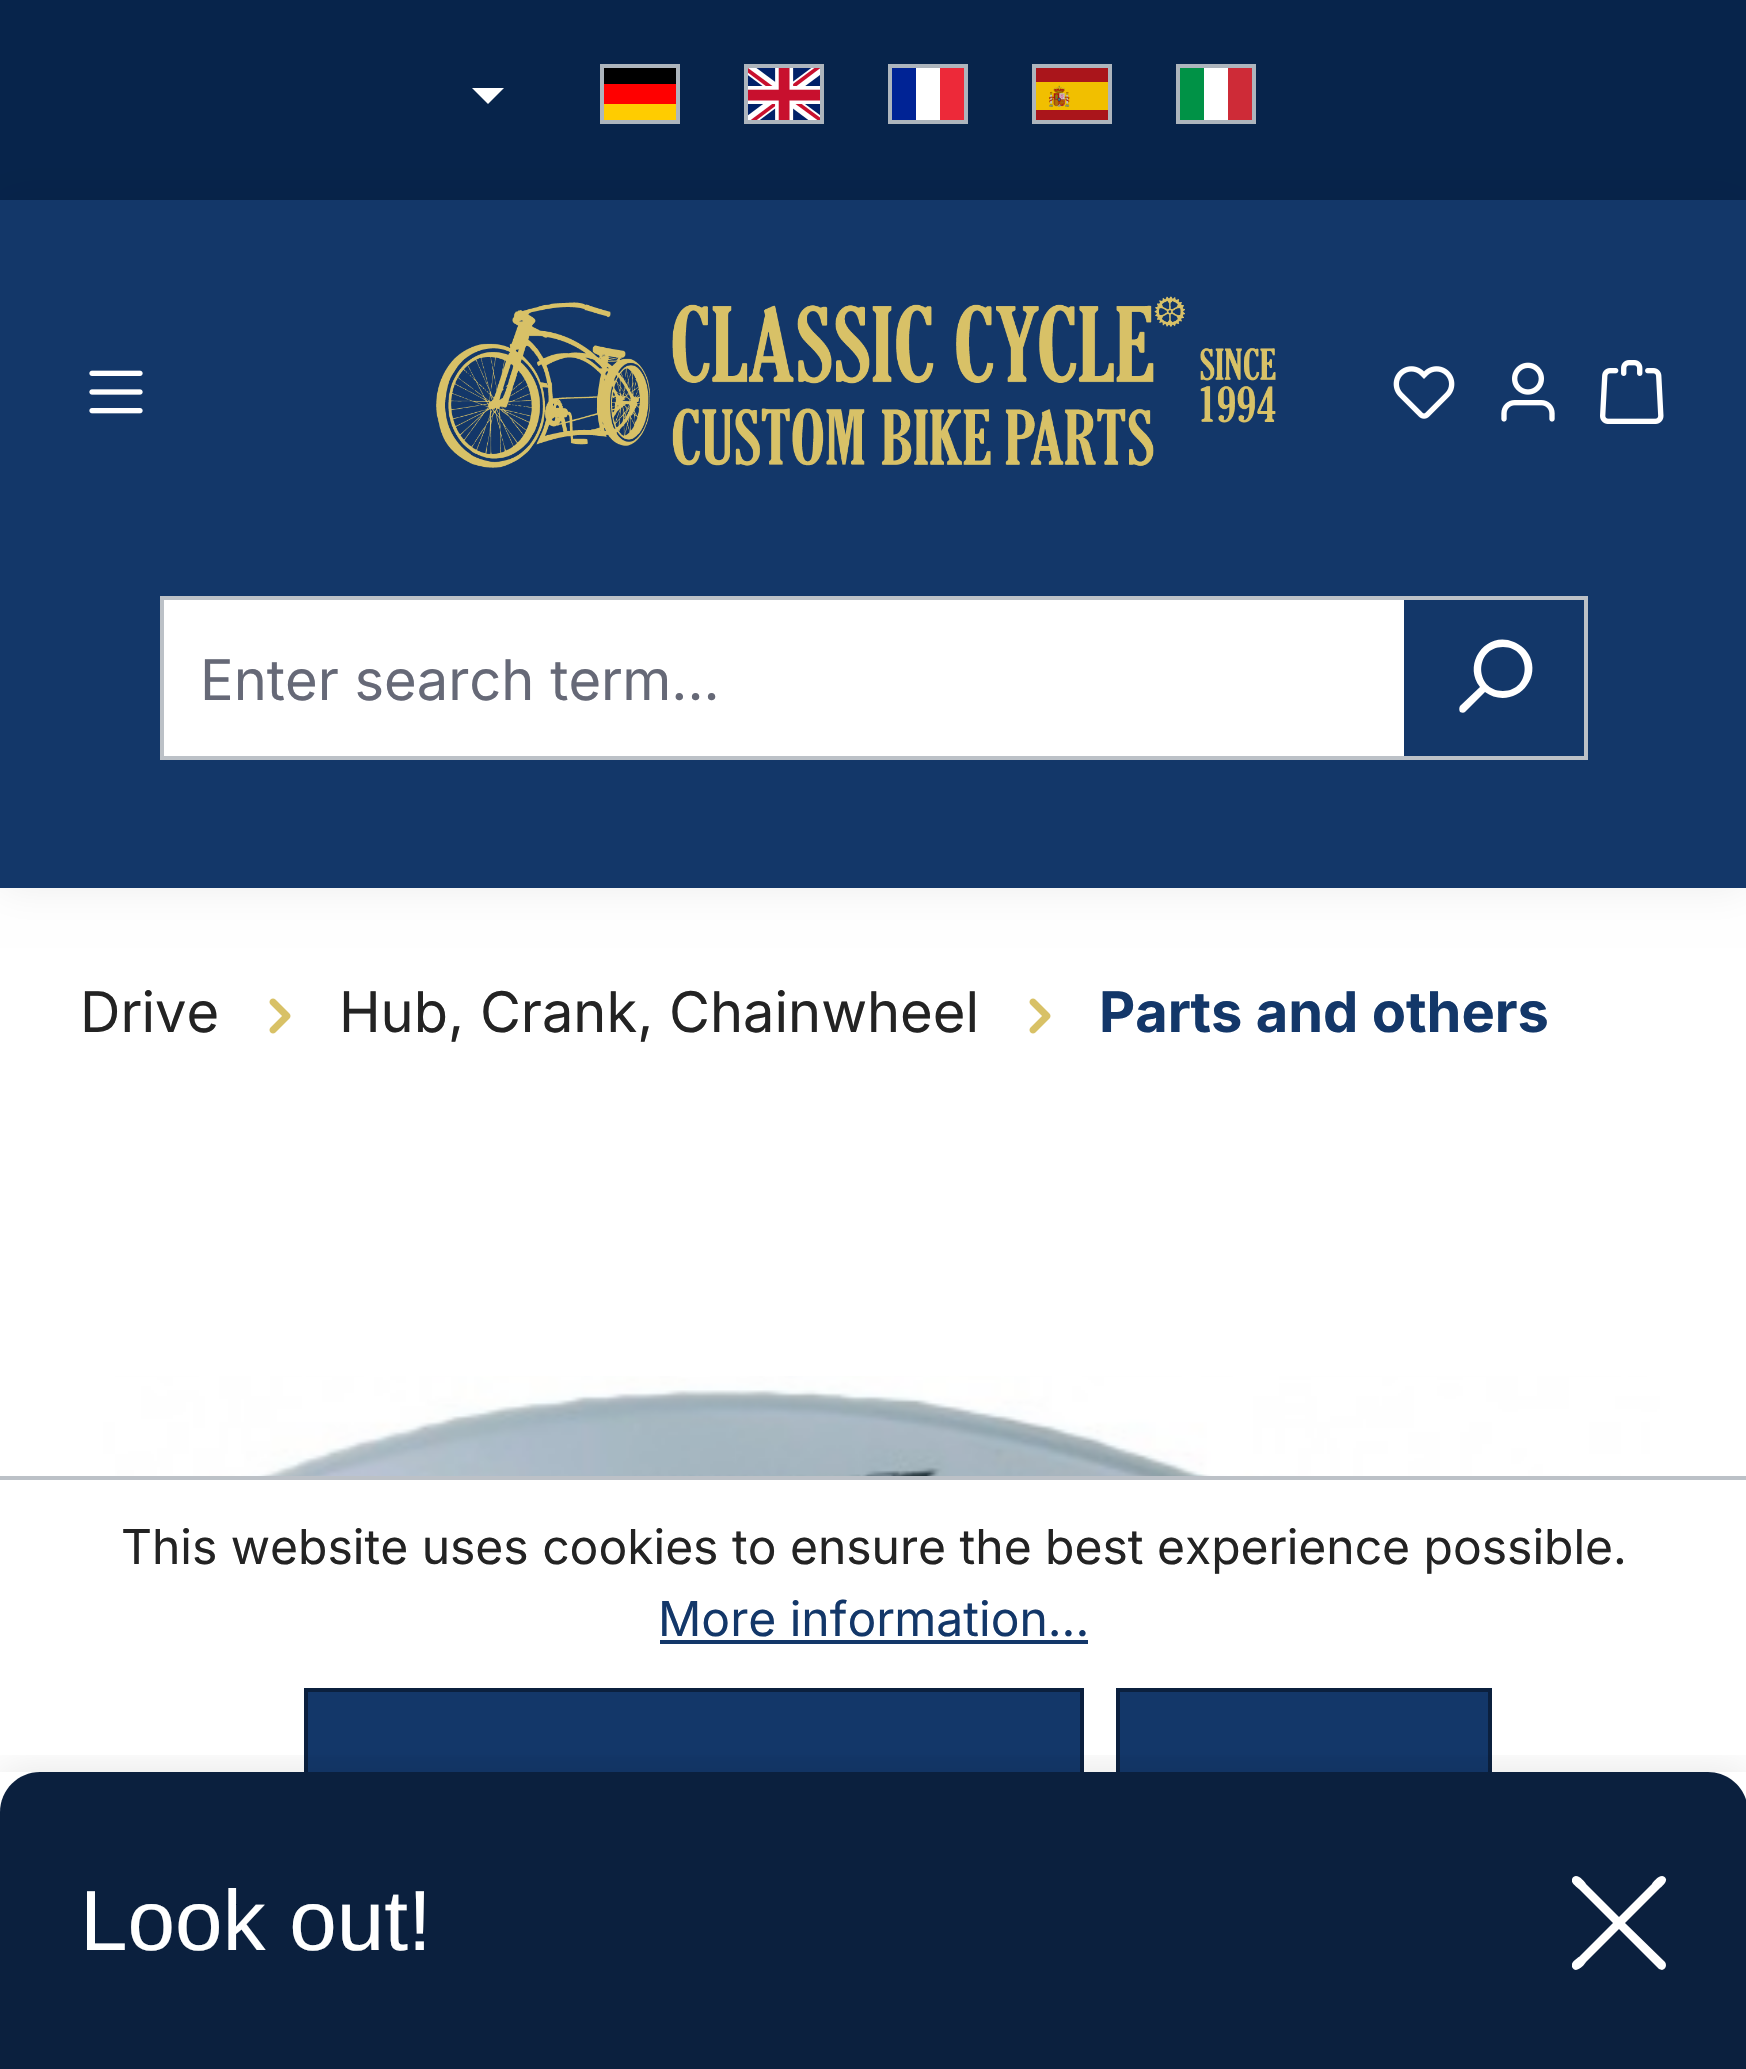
void draw(SkCanvas* canvas) {
    SkPaint paint;
    paint.setAntiAlias(true);
    canvas->clear(0xFFFFFFFF);
    paint.setColor(0xFF07244B);
    canvas->drawRect(SkRect::MakeXYWH(0, 0, 1746, 200), paint);
    paint.setColor(0xFFFFFFFF);
    canvas->drawPath(SkPathBuilder().moveTo(472, 88).lineTo(504, 88).lineTo(488, 104).close().detach(), paint);
    paint.setColor(0xFF000000);
    canvas->drawRect(SkRect::MakeXYWH(604, 68, 72, 16), paint);
    paint.setColor(0xFFFF0000);
    canvas->drawRect(SkRect::MakeXYWH(604, 84, 72, 20), paint);
    paint.setColor(0xFFFFCC00);
    canvas->drawRect(SkRect::MakeXYWH(604, 104, 72, 16), paint);
    paint.setStyle(SkPaint::kStroke_Style);
    paint.setStrokeWidth(4);
    paint.setColor(0xFFADB5BD);
    canvas->drawRect(SkRect::MakeXYWH(602, 66, 76, 56), paint);
    canvas->drawImageRect(SkImages::DeferredFromEncodedData(SkData::MakeFromFileName("img1.png")), SkRect::MakeXYWH(748, 68, 72, 52), SkSamplingOptions());
    canvas->drawRect(SkRect::MakeXYWH(746, 66, 76, 56), paint);
    paint.setStyle(SkPaint::kFill_Style);
    paint.setColor(0xFF002395);
    canvas->drawRect(SkRect::MakeXYWH(892, 68, 24, 52), paint);
    paint.setColor(0xFFFFFFFF);
    canvas->drawRect(SkRect::MakeXYWH(916, 68, 24, 52), paint);
    paint.setColor(0xFFED2939);
    canvas->drawRect(SkRect::MakeXYWH(940, 68, 24, 52), paint);
    paint.setStyle(SkPaint::kStroke_Style);
    paint.setColor(0xFFADB5BD);
    canvas->drawRect(SkRect::MakeXYWH(890, 66, 76, 56), paint);
    canvas->drawImageRect(SkImages::DeferredFromEncodedData(SkData::MakeFromFileName("img2.png")), SkRect::MakeXYWH(1036, 68, 72, 52), SkSamplingOptions());
    canvas->drawRect(SkRect::MakeXYWH(1034, 66, 76, 56), paint);
    paint.setStyle(SkPaint::kFill_Style);
    paint.setColor(0xFF009246);
    canvas->drawRect(SkRect::MakeXYWH(1180, 68, 24, 52), paint);
    paint.setColor(0xFFFFFFFF);
    canvas->drawRect(SkRect::MakeXYWH(1204, 68, 24, 52), paint);
    paint.setColor(0xFFCE2B37);
    canvas->drawRect(SkRect::MakeXYWH(1228, 68, 24, 52), paint);
    paint.setStyle(SkPaint::kStroke_Style);
    paint.setColor(0xFFADB5BD);
    canvas->drawRect(SkRect::MakeXYWH(1178, 66, 76, 56), paint);
    paint.setStyle(SkPaint::kFill_Style);
    paint.setColor(0x12000000);
    paint.setMaskFilter(SkMaskFilter::MakeBlur(kNormal_SkBlurStyle, 20));
    canvas->drawRect(SkRect::MakeXYWH(0, 200, 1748, 688), paint);
    paint.setMaskFilter(nullptr);
    paint.setColor(0xFF133769);
    canvas->drawRect(SkRect::MakeXYWH(0, 200, 1746, 688), paint);
    canvas->drawImageRect(SkImages::DeferredFromEncodedData(SkData::MakeFromFileName("img3.png")), SkRect::MakeXYWH(89, 370, 54, 44), SkSamplingOptions());
    canvas->drawImageRect(SkImages::DeferredFromEncodedData(SkData::MakeFromFileName("img4.png")), SkRect::MakeXYWH(436, 296, 840, 172), SkSamplingOptions());
    canvas->drawImageRect(SkImages::DeferredFromEncodedData(SkData::MakeFromFileName("img5.png")), SkRect::MakeXYWH(1393, 366, 62, 53), SkSamplingOptions());
    canvas->drawImageRect(SkImages::DeferredFromEncodedData(SkData::MakeFromFileName("img6.png")), SkRect::MakeXYWH(1501, 362, 54, 60), SkSamplingOptions());
    canvas->drawImageRect(SkImages::DeferredFromEncodedData(SkData::MakeFromFileName("img7.png")), SkRect::MakeXYWH(1600, 360, 64, 64), SkSamplingOptions());
    paint.setColor(0xFFFFFFFF);
    canvas->drawRect(SkRect::MakeXYWH(164, 600, 1240, 156), paint);
    paint.setColor(0xFFBCC1C7);
    canvas->drawRect(SkRect::MakeXYWH(160, 596, 1428, 4), paint);
    canvas->drawRect(SkRect::MakeXYWH(160, 756, 1244, 4), paint);
    canvas->drawRect(SkRect::MakeXYWH(160, 596, 4, 164), paint);
    SkFont font1(fontMgr->matchFamilyStyle("Inter", SkFontStyle::Normal()), 56);
    font1.setSubpixel(true);
    paint.setColor(0xFF666977);
    canvas->drawString("Enter search term...", 200, 700, font1, paint);
    paint.setColor(0xFFBCC1C7);
    canvas->drawRect(SkRect::MakeXYWH(1584, 596, 4, 164), paint);
    canvas->drawRect(SkRect::MakeXYWH(1400, 756, 188, 4), paint);
    paint.setColor(0xFFFFFFFF);
    canvas->drawPath(SkPathBuilder(SkPathFillType::kEvenOdd).moveTo(1485, 692).lineTo(1465, 712).cubicTo(1464, 713, 1462, 713, 1460, 712).cubicTo(1459, 710, 1459, 708, 1460, 706).lineTo(1480, 687).cubicTo(1462, 664, 1486, 630, 1514, 642).cubicTo(1521, 645, 1527, 650, 1530, 657).cubicTo(1534, 666, 1533, 677, 1527, 685).cubicTo(1518, 699, 1498, 702, 1485, 692).close().moveTo(1503, 691).cubicTo(1532, 691, 1532, 647, 1503, 647).cubicTo(1474, 647, 1474, 691, 1503, 691).close().detach(), paint);
    paint.setColor(0xFF232323);
    canvas->drawString("Drive", 80, 1032, font1, paint);
    canvas->drawImageRect(SkImages::DeferredFromEncodedData(SkData::MakeFromFileName("img8.png")), SkRect::MakeXYWH(269, 998, 22, 36), SkSamplingOptions());
    canvas->drawString("Hub, Crank, Chainwheel", 339, 1032, font1, paint);
    canvas->drawImageRect(SkImages::DeferredFromEncodedData(SkData::MakeFromFileName("img8.png")), SkRect::MakeXYWH(1029, 998, 22, 36), SkSamplingOptions());
    SkFont font2(fontMgr->matchFamilyStyle("Inter", SkFontStyle::Bold()), 56);
    font2.setSubpixel(true);
    paint.setColor(0xFF133769);
    canvas->drawString("Parts and others", 1099, 1032, font2, paint);
    canvas->drawImageRect(SkImages::DeferredFromEncodedData(SkData::MakeFromFileName("img9.png")), SkRect::MakeXYWH(103, 1376, 1558, 100), SkSamplingOptions());
    paint.setColor(0xFFBCC1C7);
    canvas->drawRect(SkRect::MakeXYWH(0, 1476, 1746, 4), paint);
    SkFont font3(fontMgr->matchFamilyStyle("Inter", SkFontStyle::Normal()), 48);
    font3.setSubpixel(true);
    paint.setColor(0xFF232323);
    canvas->drawString("This website uses cookies to ensure the best experience possible.", 121, 1564, font3, paint);
    paint.setColor(0xFF133769);
    canvas->drawString("More information...", 658, 1636, font3, paint);
    canvas->drawRect(SkRect::MakeXYWH(660, 1640, 428, 4), paint);
    canvas->drawRect(SkRect::MakeXYWH(308, 1692, 772, 80), paint);
    paint.setStyle(SkPaint::kStroke_Style);
    paint.setColor(0xFF0B203E);
    canvas->drawRect(SkRect::MakeXYWH(306, 1690, 776, 156), paint);
    paint.setStyle(SkPaint::kFill_Style);
    paint.setColor(0xFF133769);
    canvas->drawRect(SkRect::MakeXYWH(1120, 1692, 368, 80), paint);
    paint.setStyle(SkPaint::kStroke_Style);
    paint.setColor(0xFF0B203E);
    canvas->drawRect(SkRect::MakeXYWH(1118, 1690, 372, 156), paint);
    canvas->save();
    canvas->clipRect(SkRect::MakeXYWH(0, 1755, 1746, 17));
    paint.setStyle(SkPaint::kFill_Style);
    paint.setColor(0x1A000000);
    paint.setMaskFilter(SkMaskFilter::MakeBlur(kNormal_SkBlurStyle, 20));
    canvas->drawRect(SkRect::MakeXYWH(0, 1772, 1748, 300), paint);
    paint.setMaskFilter(nullptr);
    canvas->restore();
    paint.setColor(0xFF0B203E);
    canvas->drawPath(SkPathBuilder().moveTo(40, 1772).lineTo(1708, 1772).cubicTo(1730, 1772, 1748, 1790, 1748, 1812).lineTo(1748, 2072).lineTo(0, 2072).lineTo(0, 1812).cubicTo(0, 1790, 18, 1772, 40, 1772).close().detach(), paint);
    SkFont font4(fontMgr->matchFamilyStyle("Liberation Sans", SkFontStyle::Normal()), 85.5f);
    font4.setSubpixel(true);
    paint.setColor(0xFFFFFFFF);
    canvas->drawString("Look out!", 80, 1950, font4, paint);
    canvas->save();
    canvas->clipRect(SkRect::MakeXYWH(1572, 1876, 96, 96));
    canvas->drawPath(SkPathBuilder().moveTo(1625, 1923).lineTo(1658, 1890).cubicTo(1660, 1888, 1667, 1883, 1666, 1879).cubicTo(1662, 1871, 1653, 1882, 1652, 1884).lineTo(1619, 1917).lineTo(1586, 1884).cubicTo(1585, 1882, 1576, 1871, 1572, 1879).cubicTo(1570, 1883, 1578, 1888, 1580, 1890).lineTo(1613, 1923).lineTo(1580, 1956).cubicTo(1578, 1958, 1570, 1962, 1572, 1967).cubicTo(1576, 1975, 1585, 1964, 1586, 1962).lineTo(1619, 1929).lineTo(1659, 1969).lineTo(1662, 1970).cubicTo(1666, 1969, 1667, 1965, 1665, 1962).close().detach(), paint);
    canvas->restore();
}
